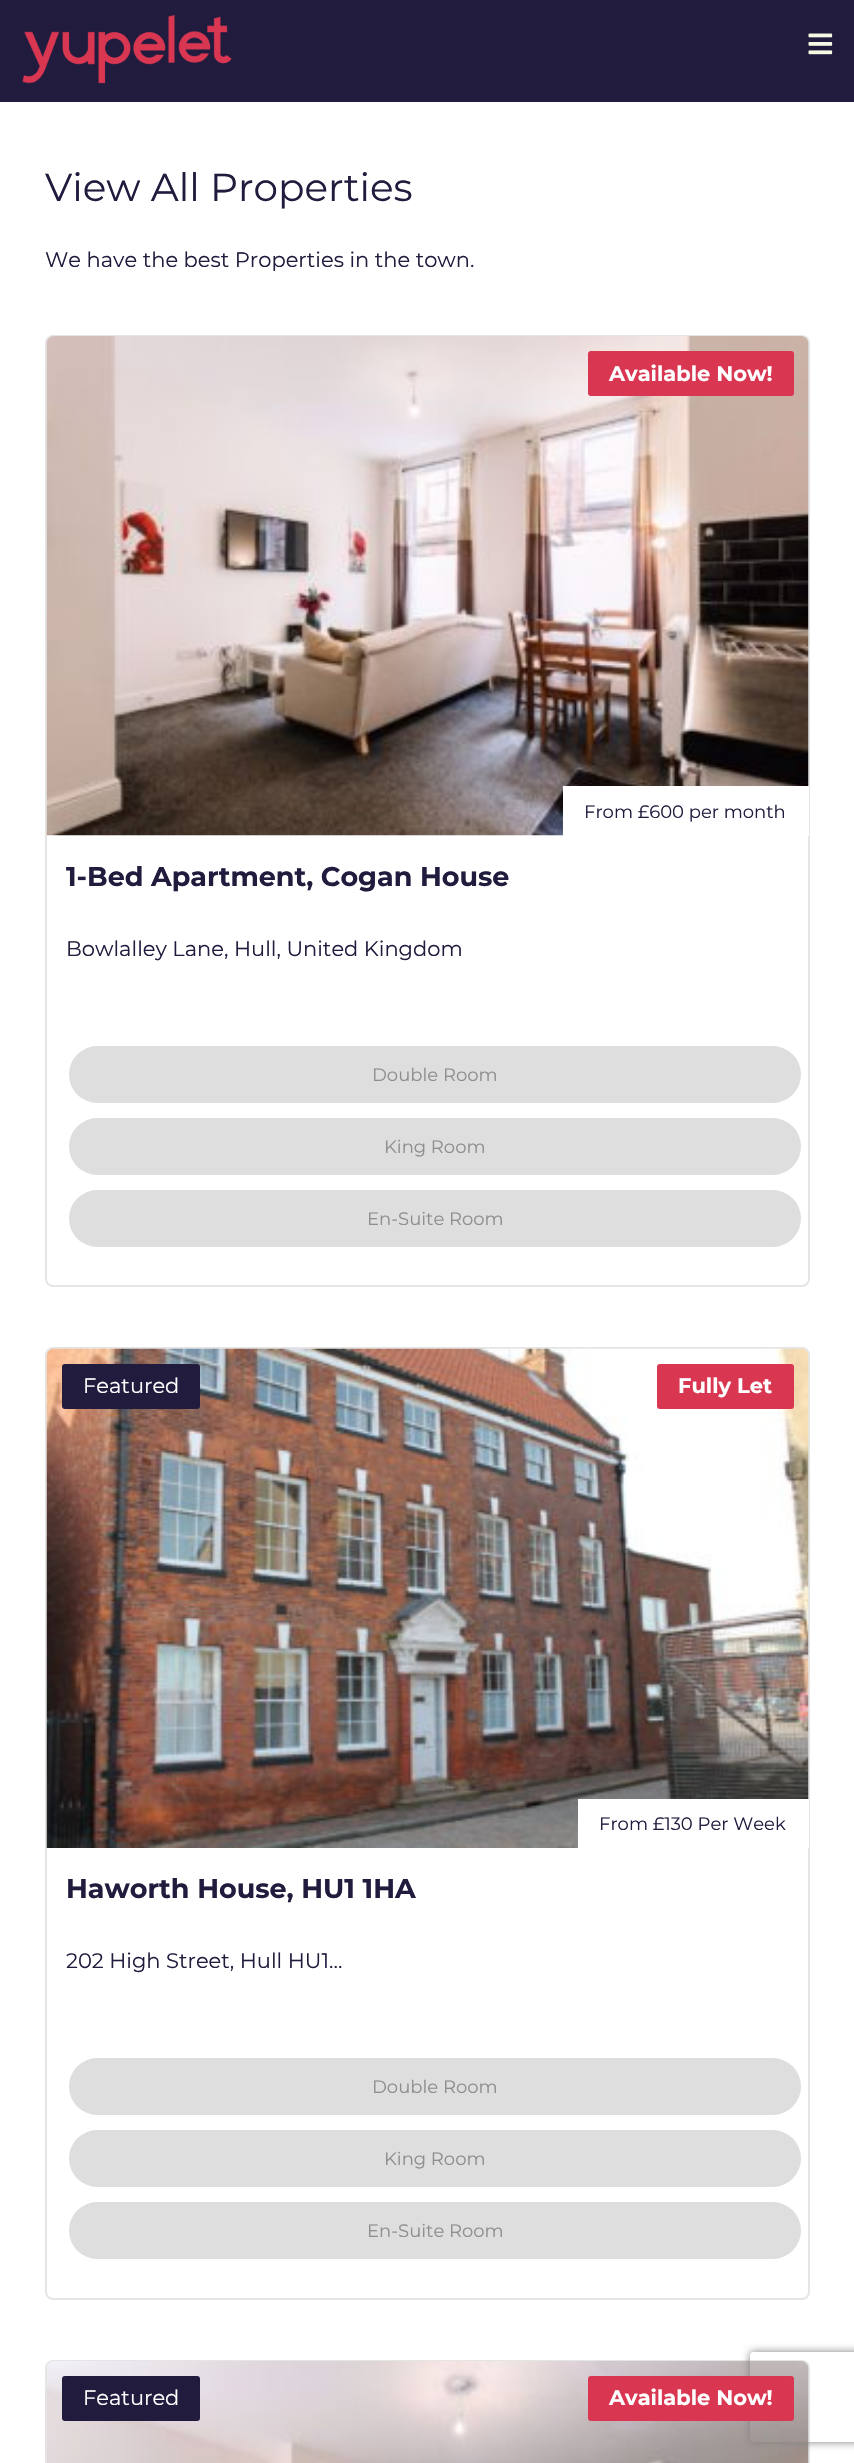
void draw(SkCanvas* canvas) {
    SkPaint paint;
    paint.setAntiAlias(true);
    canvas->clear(0xFFFFFFFF);
    paint.setColor(0xFF211B3E);
    canvas->drawRect(SkRect::MakeXYWH(0, 0, 854, 102), paint);
    canvas->drawImageRect(SkImages::DeferredFromEncodedData(SkData::MakeFromFileName("img1.png")), SkRect::MakeXYWH(22, 15, 210, 69), SkSamplingOptions());
    canvas->drawImageRect(SkImages::DeferredFromEncodedData(SkData::MakeFromFileName("img2.png")), SkRect::MakeXYWH(808, 33, 25, 22), SkSamplingOptions());
    SkFont font1(fontMgr->matchFamilyStyle("Montserrat", SkFontStyle::Normal()), 39);
    font1.setSubpixel(true);
    canvas->drawString("View All Properties", 45, 201, font1, paint);
    SkFont font2(fontMgr->matchFamilyStyle("Montserrat", SkFontStyle::Normal()), 21);
    font2.setSubpixel(true);
    canvas->drawString("We have the best Properties in the town.", 45, 267, font2, paint);
    paint.setStyle(SkPaint::kStroke_Style);
    paint.setStrokeWidth(2);
    paint.setColor(0xFFE5E5E5);
    canvas->drawRoundRect(SkRect::MakeXYWH(46, 336, 763, 950), 7, 7, paint);
    canvas->drawImageRect(SkImages::DeferredFromEncodedData(SkData::MakeFromFileName("img3.png")), SkRect::MakeXYWH(46, 336, 763, 500), SkSamplingOptions());
    paint.setStyle(SkPaint::kFill_Style);
    paint.setColor(0xFFD93651);
    canvas->drawRoundRect(SkRect::MakeXYWH(588, 351, 206, 45), 3, 3, paint);
    SkFont font3(fontMgr->matchFamilyStyle("Montserrat", SkFontStyle::Bold()), 21);
    font3.setSubpixel(true);
    paint.setColor(0xFFFFFFFF);
    canvas->drawString("Available Now!", 609, 381, font3, paint);
    canvas->drawRect(SkRect::MakeXYWH(563, 786, 246, 50), paint);
    SkFont font4(fontMgr->matchFamilyStyle("Montserrat", SkFontStyle::Normal()), 18);
    font4.setSubpixel(true);
    paint.setColor(0xFF211B3E);
    canvas->drawString("From £600 per month", 584, 818, font4, paint);
    SkFont font5(fontMgr->matchFamilyStyle("Montserrat", SkFontStyle::Bold()), 27);
    font5.setSubpixel(true);
    canvas->drawString("1-Bed Apartment, Cogan House", 66, 886, font5, paint);
    canvas->drawString("Bowlalley Lane, Hull, United Kingdom", 66, 956, font2, paint);
    paint.setColor(0xFFDEDEDE);
    canvas->drawRoundRect(SkRect::MakeXYWH(69, 1046, 732, 57), 28.5f, 28.5f, paint);
    paint.setColor(0xFF8E8E8E);
    canvas->drawString("Double Room", 372, 1081, font4, paint);
    paint.setColor(0xFFDEDEDE);
    canvas->drawRoundRect(SkRect::MakeXYWH(69, 1118, 732, 57), 28.5f, 28.5f, paint);
    paint.setColor(0xFF8E8E8E);
    canvas->drawString("King Room", 384, 1153, font4, paint);
    paint.setColor(0xFFDEDEDE);
    canvas->drawRoundRect(SkRect::MakeXYWH(69, 1190, 732, 57), 28.5f, 28.5f, paint);
    paint.setColor(0xFF8E8E8E);
    canvas->drawString("En-Suite Room", 367, 1225, font4, paint);
    paint.setStyle(SkPaint::kStroke_Style);
    paint.setColor(0xFFE5E5E5);
    canvas->drawRoundRect(SkRect::MakeXYWH(46, 1348, 763, 951), 7, 7, paint);
    canvas->drawImageRect(SkImages::DeferredFromEncodedData(SkData::MakeFromFileName("img4.png")), SkRect::MakeXYWH(46, 1348, 763, 500), SkSamplingOptions());
    paint.setStyle(SkPaint::kFill_Style);
    paint.setColor(0xFF211B3E);
    canvas->drawRoundRect(SkRect::MakeXYWH(62, 1364, 138, 45), 3, 3, paint);
    paint.setColor(0xFFFFFFFF);
    canvas->drawString("Featured", 83, 1393, font2, paint);
    paint.setColor(0xFFD93651);
    canvas->drawRoundRect(SkRect::MakeXYWH(657, 1364, 137, 45), 3, 3, paint);
    paint.setColor(0xFFFFFFFF);
    canvas->drawString("Fully Let", 678, 1393, font3, paint);
    canvas->drawRect(SkRect::MakeXYWH(578, 1799, 231, 49), paint);
    paint.setColor(0xFF211B3E);
    canvas->drawString("From £130 Per Week", 599, 1830, font4, paint);
    canvas->drawString("Haworth House, HU1 1HA", 66, 1898, font5, paint);
    canvas->drawString("202 High Street, Hull HU1...", 66, 1968, font2, paint);
    paint.setColor(0xFFDEDEDE);
    canvas->drawRoundRect(SkRect::MakeXYWH(69, 2058, 732, 57), 28.5f, 28.5f, paint);
    paint.setColor(0xFF8E8E8E);
    canvas->drawString("Double Room", 372, 2093, font4, paint);
    paint.setColor(0xFFDEDEDE);
    canvas->drawRoundRect(SkRect::MakeXYWH(69, 2130, 732, 57), 28.5f, 28.5f, paint);
    paint.setColor(0xFF8E8E8E);
    canvas->drawString("King Room", 384, 2165, font4, paint);
    paint.setColor(0xFFDEDEDE);
    canvas->drawRoundRect(SkRect::MakeXYWH(69, 2202, 732, 57), 28.5f, 28.5f, paint);
    paint.setColor(0xFF8E8E8E);
    canvas->drawString("En-Suite Room", 367, 2237, font4, paint);
    paint.setStyle(SkPaint::kStroke_Style);
    paint.setColor(0xFFE5E5E5);
    canvas->drawRoundRect(SkRect::MakeXYWH(46, 2361, 763, 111), 7, 7, paint);
    canvas->drawImageRect(SkImages::DeferredFromEncodedData(SkData::MakeFromFileName("img5.png")), SkRect::MakeXYWH(46, 2361, 763, 102), SkSamplingOptions());
    paint.setStyle(SkPaint::kFill_Style);
    paint.setColor(0xFF211B3E);
    canvas->drawRoundRect(SkRect::MakeXYWH(62, 2376, 138, 45), 3, 3, paint);
    paint.setColor(0xFFFFFFFF);
    canvas->drawString("Featured", 83, 2405, font2, paint);
    canvas->save();
    canvas->clipPath(SkPathBuilder(SkPathFillType::kEvenOdd).moveTo(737, 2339).lineTo(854, 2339).lineTo(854, 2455).lineTo(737, 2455).close().moveTo(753, 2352).lineTo(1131, 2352).cubicTo(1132.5f, 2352, 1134, 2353.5f, 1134, 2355).lineTo(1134, 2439).cubicTo(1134, 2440.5f, 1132.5f, 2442, 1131, 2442).lineTo(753, 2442).cubicTo(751.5f, 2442, 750, 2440.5f, 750, 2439).lineTo(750, 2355).cubicTo(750, 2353.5f, 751.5f, 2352, 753, 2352).close().detach(), true);
    paint.setColor(0xFF808080);
    paint.setMaskFilter(SkMaskFilter::MakeBlur(kNormal_SkBlurStyle, 4));
    canvas->drawRoundRect(SkRect::MakeXYWH(750, 2352, 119, 90), 3, 3, paint);
    paint.setMaskFilter(nullptr);
    canvas->restore();
    paint.setColor(0xFFD93651);
    canvas->drawRoundRect(SkRect::MakeXYWH(588, 2376, 206, 45), 3, 3, paint);
    paint.setColor(0xFFFFFFFF);
    canvas->drawString("Available Now!", 609, 2405, font3, paint);
}
